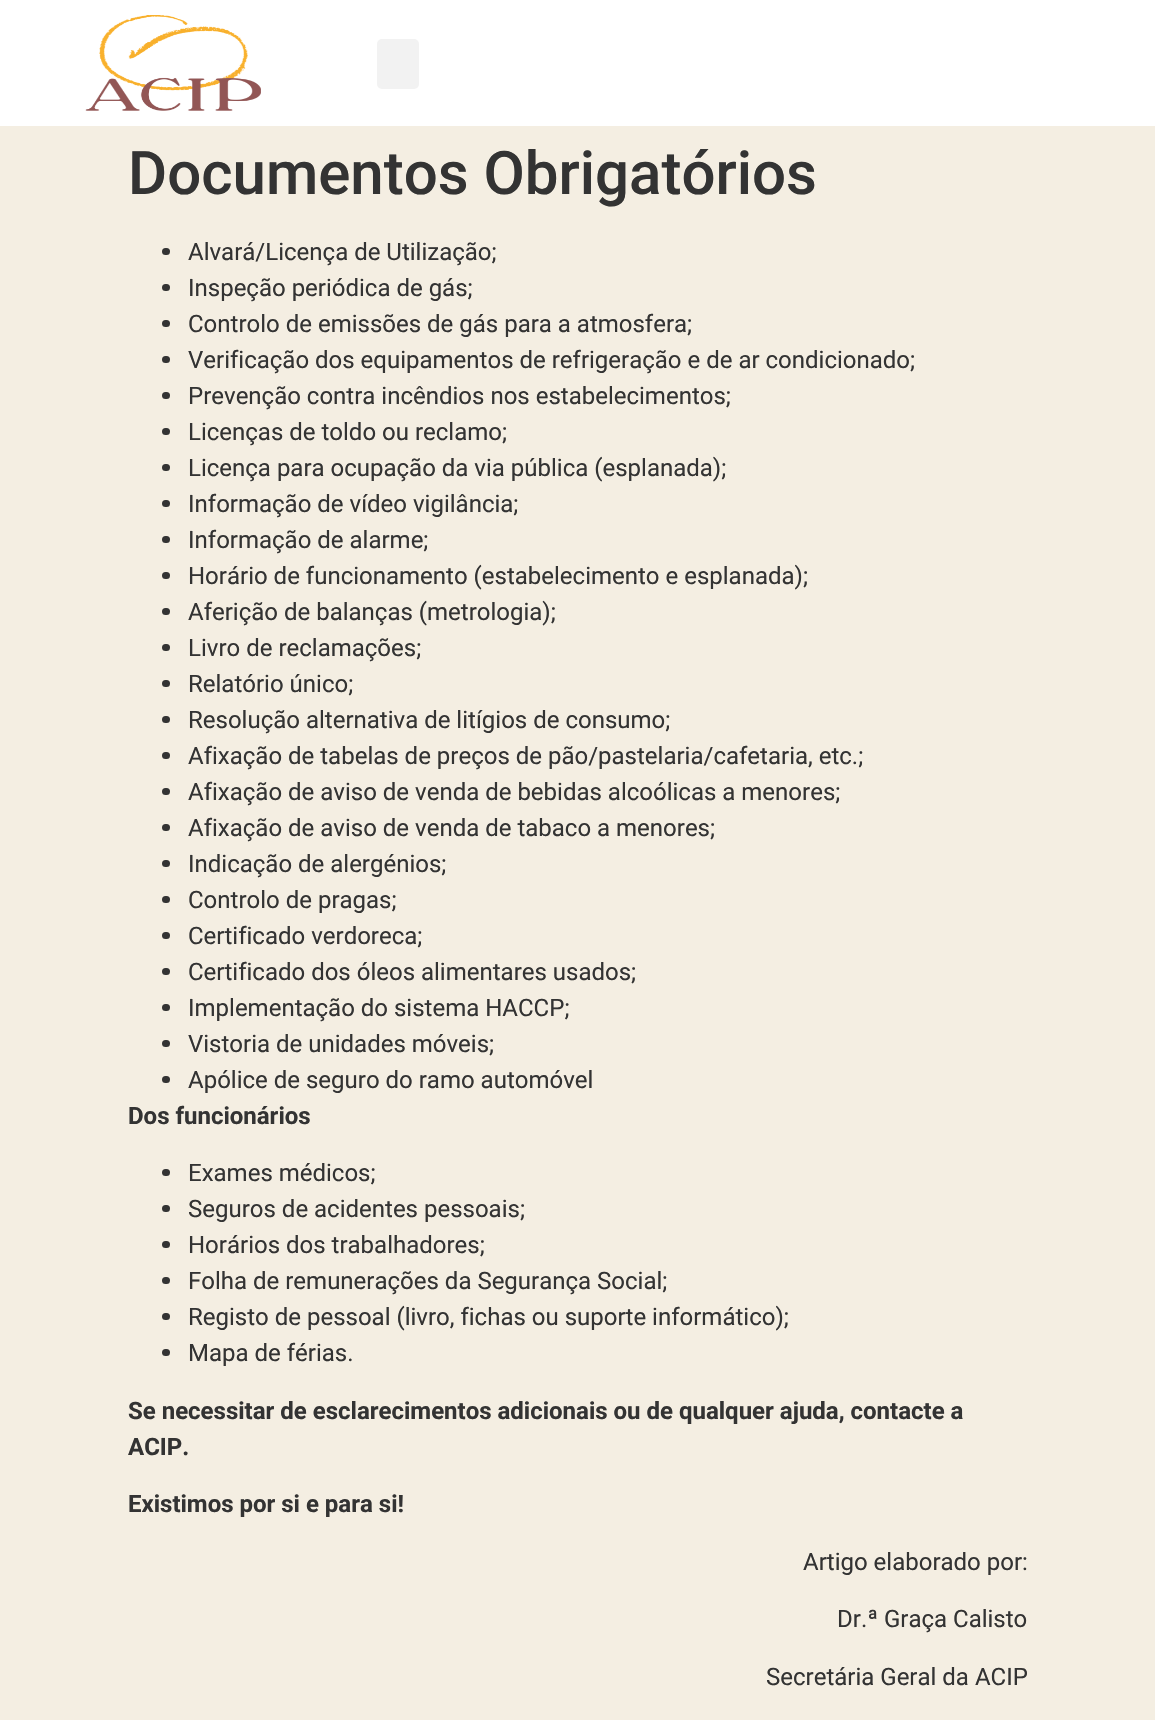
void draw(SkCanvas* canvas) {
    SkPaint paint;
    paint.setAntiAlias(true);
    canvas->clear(0xFFF4EEE2);
    paint.setColor(0xFFFFFFFF);
    canvas->drawRect(SkRect::MakeXYWH(0, 0, 1155, 126), paint);
    canvas->drawImageRect(SkImages::DeferredFromEncodedData(SkData::MakeFromFileName("img1.png")), SkRect::MakeXYWH(85, 15, 176, 96), SkSamplingOptions());
    paint.setColor(0xFFF2F2F2);
    canvas->drawRoundRect(SkRect::MakeXYWH(377, 39, 42, 50), 5, 5, paint);
    SkFont font1(fontMgr->matchFamilyStyle("Roboto", SkFontStyle(500, SkFontStyle::kNormal_Width, SkFontStyle::kUpright_Slant)), 60);
    font1.setSubpixel(true);
    paint.setColor(0xFF333333);
    canvas->drawString("Documentos Obrigatórios", 128, 194, font1, paint);
    canvas->drawRoundRect(SkRect::MakeXYWH(162, 248, 8, 7), 3.5f, 3.5f, paint);
    SkFont font2(fontMgr->matchFamilyStyle("Roboto", SkFontStyle::Normal()), 24);
    font2.setSubpixel(true);
    canvas->drawString("Alvará/Licença de Utilização;", 188, 260, font2, paint);
    canvas->drawRoundRect(SkRect::MakeXYWH(162, 284, 8, 7), 3.5f, 3.5f, paint);
    canvas->drawString("Inspeção periódica de gás;", 188, 296, font2, paint);
    canvas->drawRoundRect(SkRect::MakeXYWH(162, 320, 8, 7), 3.5f, 3.5f, paint);
    canvas->drawString("Controlo de emissões de gás para a atmosfera;", 188, 332, font2, paint);
    canvas->drawRoundRect(SkRect::MakeXYWH(162, 356, 8, 7), 3.5f, 3.5f, paint);
    canvas->drawString("Verificação dos equipamentos de refrigeração e de ar condicionado;", 188, 368, font2, paint);
    canvas->drawRoundRect(SkRect::MakeXYWH(162, 392, 8, 7), 3.5f, 3.5f, paint);
    canvas->drawString("Prevenção contra incêndios nos estabelecimentos;", 188, 404, font2, paint);
    canvas->drawRoundRect(SkRect::MakeXYWH(162, 428, 8, 7), 3.5f, 3.5f, paint);
    canvas->drawString("Licenças de toldo ou reclamo;", 188, 440, font2, paint);
    canvas->drawRoundRect(SkRect::MakeXYWH(162, 464, 8, 7), 3.5f, 3.5f, paint);
    canvas->drawString("Licença para ocupação da via pública (esplanada);", 188, 476, font2, paint);
    canvas->drawRoundRect(SkRect::MakeXYWH(162, 500, 8, 7), 3.5f, 3.5f, paint);
    canvas->drawString("Informação de vídeo vigilância;", 188, 512, font2, paint);
    canvas->drawRoundRect(SkRect::MakeXYWH(162, 536, 8, 7), 3.5f, 3.5f, paint);
    canvas->drawString("Informação de alarme;", 188, 548, font2, paint);
    canvas->drawRoundRect(SkRect::MakeXYWH(162, 572, 8, 7), 3.5f, 3.5f, paint);
    canvas->drawString("Horário de funcionamento (estabelecimento e esplanada);", 188, 584, font2, paint);
    canvas->drawRoundRect(SkRect::MakeXYWH(162, 608, 8, 7), 3.5f, 3.5f, paint);
    canvas->drawString("Aferição de balanças (metrologia);", 188, 620, font2, paint);
    canvas->drawRoundRect(SkRect::MakeXYWH(162, 644, 8, 7), 3.5f, 3.5f, paint);
    canvas->drawString("Livro de reclamações;", 188, 656, font2, paint);
    canvas->drawRoundRect(SkRect::MakeXYWH(162, 680, 8, 7), 3.5f, 3.5f, paint);
    canvas->drawString("Relatório único;", 188, 692, font2, paint);
    canvas->drawRoundRect(SkRect::MakeXYWH(162, 716, 8, 7), 3.5f, 3.5f, paint);
    canvas->drawString("Resolução alternativa de litígios de consumo;", 188, 728, font2, paint);
    canvas->drawRoundRect(SkRect::MakeXYWH(162, 752, 8, 7), 3.5f, 3.5f, paint);
    canvas->drawString("Afixação de tabelas de preços de pão/pastelaria/cafetaria, etc.;", 188, 764, font2, paint);
    canvas->drawRoundRect(SkRect::MakeXYWH(162, 788, 8, 7), 3.5f, 3.5f, paint);
    canvas->drawString("Afixação de aviso de venda de bebidas alcoólicas a menores;", 188, 800, font2, paint);
    canvas->drawRoundRect(SkRect::MakeXYWH(162, 824, 8, 7), 3.5f, 3.5f, paint);
    canvas->drawString("Afixação de aviso de venda de tabaco a menores;", 188, 836, font2, paint);
    canvas->drawRoundRect(SkRect::MakeXYWH(162, 860, 8, 7), 3.5f, 3.5f, paint);
    canvas->drawString("Indicação de alergénios;", 188, 872, font2, paint);
    canvas->drawRoundRect(SkRect::MakeXYWH(162, 896, 8, 7), 3.5f, 3.5f, paint);
    canvas->drawString("Controlo de pragas;", 188, 908, font2, paint);
    canvas->drawRoundRect(SkRect::MakeXYWH(162, 932, 8, 7), 3.5f, 3.5f, paint);
    canvas->drawString("Certificado verdoreca;", 188, 944, font2, paint);
    canvas->drawRoundRect(SkRect::MakeXYWH(162, 968, 8, 7), 3.5f, 3.5f, paint);
    canvas->drawString("Certificado dos óleos alimentares usados;", 188, 980, font2, paint);
    canvas->drawRoundRect(SkRect::MakeXYWH(162, 1004, 8, 7), 3.5f, 3.5f, paint);
    canvas->drawString("Implementação do sistema HACCP;", 188, 1016, font2, paint);
    canvas->drawRoundRect(SkRect::MakeXYWH(162, 1040, 8, 7), 3.5f, 3.5f, paint);
    canvas->drawString("Vistoria de unidades móveis;", 188, 1052, font2, paint);
    canvas->drawRoundRect(SkRect::MakeXYWH(162, 1076, 8, 7), 3.5f, 3.5f, paint);
    canvas->drawString("Apólice de seguro do ramo automóvel", 188, 1088, font2, paint);
    SkFont font3(fontMgr->matchFamilyStyle("Roboto", SkFontStyle::Bold()), 24);
    font3.setSubpixel(true);
    canvas->drawString("Dos funcionários", 128, 1124, font3, paint);
    canvas->drawRoundRect(SkRect::MakeXYWH(162, 1169, 8, 7), 3.5f, 3.5f, paint);
    canvas->drawString("Exames médicos;", 188, 1181, font2, paint);
    canvas->drawRoundRect(SkRect::MakeXYWH(162, 1205, 8, 7), 3.5f, 3.5f, paint);
    canvas->drawString("Seguros de acidentes pessoais;", 188, 1217, font2, paint);
    canvas->drawRoundRect(SkRect::MakeXYWH(162, 1241, 8, 7), 3.5f, 3.5f, paint);
    canvas->drawString("Horários dos trabalhadores;", 188, 1253, font2, paint);
    canvas->drawRoundRect(SkRect::MakeXYWH(162, 1277, 8, 7), 3.5f, 3.5f, paint);
    canvas->drawString("Folha de remunerações da Segurança Social;", 188, 1289, font2, paint);
    canvas->drawRoundRect(SkRect::MakeXYWH(162, 1313, 8, 7), 3.5f, 3.5f, paint);
    canvas->drawString("Registo de pessoal (livro, fichas ou suporte informático);", 188, 1325, font2, paint);
    canvas->drawRoundRect(SkRect::MakeXYWH(162, 1349, 8, 7), 3.5f, 3.5f, paint);
    canvas->drawString("Mapa de férias.", 188, 1361, font2, paint);
    canvas->drawString("Se necessitar de esclarecimentos adicionais ou de qualquer ajuda, contacte a", 128, 1419, font3, paint);
    canvas->drawString("ACIP.", 128, 1455, font3, paint);
    canvas->drawString("Existimos por si e para si!", 128, 1512, font3, paint);
    canvas->drawString("Artigo elaborado por:", 803, 1570, font2, paint);
    canvas->drawString("Dr.ª Graça Calisto", 837, 1627, font2, paint);
    canvas->drawString("Secretária Geral da ACIP", 766, 1685, font2, paint);
}
